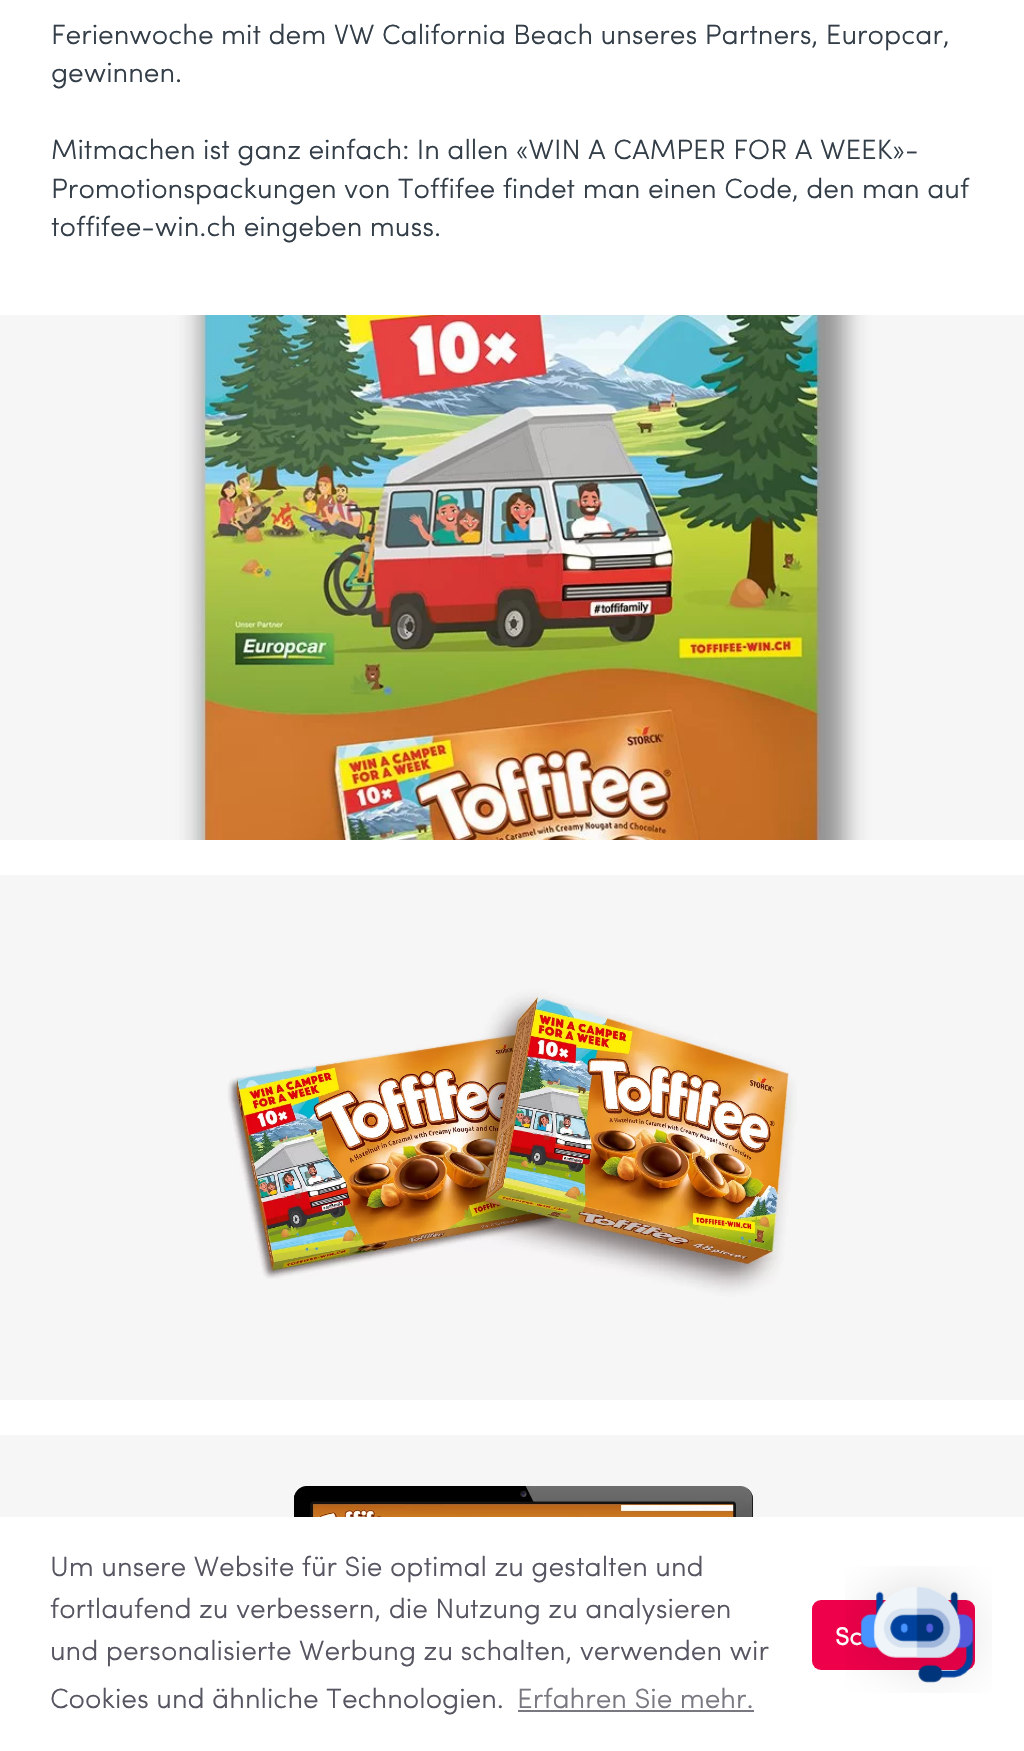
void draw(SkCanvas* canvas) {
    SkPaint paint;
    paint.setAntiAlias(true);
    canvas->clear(0xFFFFFFFF);
    SkFont font1(fontMgr->matchFamilyStyle("Sofia", SkFontStyle::Normal()), 28);
    font1.setSubpixel(true);
    paint.setColor(0xFF333E48);
    canvas->drawString("Ferienwoche mit dem VW California Beach unseres Partners, Europcar,", 51, 44, font1, paint);
    canvas->drawString("gewinnen.", 51, 82, font1, paint);
    canvas->drawString("Mitmachen ist ganz einfach: In allen «WIN A CAMPER FOR A WEEK»-", 51, 159, font1, paint);
    canvas->drawString("Promotionspackungen von Toffifee findet man einen Code, den man auf", 51, 198, font1, paint);
    canvas->drawString("toffifee-win.ch eingeben muss.", 51, 236, font1, paint);
    canvas->drawImageRect(SkImages::DeferredFromEncodedData(SkData::MakeFromFileName("img1.png")), SkRect::MakeXYWH(0, 315, 1024, 525), SkSamplingOptions());
    canvas->drawImageRect(SkImages::DeferredFromEncodedData(SkData::MakeFromFileName("img2.png")), SkRect::MakeXYWH(0, 875, 1024, 525), SkSamplingOptions());
    canvas->drawImageRect(SkImages::DeferredFromEncodedData(SkData::MakeFromFileName("img3.png")), SkRect::MakeXYWH(0, 1435, 1024, 82), SkSamplingOptions());
    paint.setColor(0xFF565662);
    canvas->drawString("Um unsere Website für Sie optimal zu gestalten und", 50, 1576, font1, paint);
    canvas->drawString("fortlaufend zu verbessern, die Nutzung zu analysieren", 50, 1618, font1, paint);
    canvas->drawString("und personalisierte Werbung zu schalten, verwenden wir", 50, 1660, font1, paint);
    canvas->drawString("Cookies und ähnliche Technologien.", 50, 1708, font1, paint);
    paint.setColor(0xFF787881);
    canvas->drawString("Erfahren Sie mehr.", 517, 1708, font1, paint);
    canvas->drawRect(SkRect::MakeXYWH(518, 1710, 236, 2), paint);
    paint.setColor(0xFFEE004A);
    canvas->drawRoundRect(SkRect::MakeXYWH(812, 1600, 163, 70), 9, 9, paint);
    SkFont font2(fontMgr->matchFamilyStyle("Sofia", SkFontStyle::Bold()), 25);
    font2.setSubpixel(true);
    paint.setColor(0xFFFFFFFF);
    canvas->drawString("Sc", 835, 1645, font2, paint);
    canvas->drawImageRect(SkImages::DeferredFromEncodedData(SkData::MakeFromFileName("img4.png")), SkRect::MakeXYWH(845, 1566, 147, 127), SkSamplingOptions());
}
